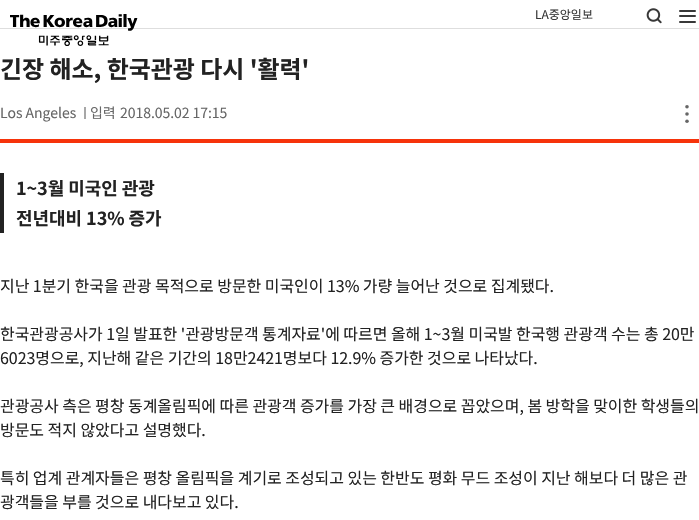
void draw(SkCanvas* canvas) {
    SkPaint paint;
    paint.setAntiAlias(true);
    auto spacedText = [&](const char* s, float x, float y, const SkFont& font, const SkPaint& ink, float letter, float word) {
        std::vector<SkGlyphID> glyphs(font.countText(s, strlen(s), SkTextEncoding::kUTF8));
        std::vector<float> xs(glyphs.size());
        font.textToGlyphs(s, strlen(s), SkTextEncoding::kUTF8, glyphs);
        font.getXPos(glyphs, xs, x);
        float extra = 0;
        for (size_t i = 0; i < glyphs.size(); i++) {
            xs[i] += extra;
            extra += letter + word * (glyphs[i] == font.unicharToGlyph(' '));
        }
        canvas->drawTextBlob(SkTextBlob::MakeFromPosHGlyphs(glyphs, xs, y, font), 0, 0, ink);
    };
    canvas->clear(0xFFFFFFFF);
    paint.setColor(0xFFDEDEDE);
    canvas->drawRect(SkRect::MakeXYWH(0, 28, 699, 1), paint);
    canvas->drawImageRect(SkImages::DeferredFromEncodedData(SkData::MakeFromFileName("img1.png")), SkRect::MakeXYWH(10, 14, 128, 32), SkSamplingOptions());
    SkFont font1(fontMgr->matchFamilyStyle("Noto Sans KR", SkFontStyle::Normal()), 12);
    font1.setSubpixel(true);
    paint.setColor(0xFF383838);
    canvas->drawString("LA중앙일보", 535, 19, font1, paint);
    canvas->drawImageRect(SkImages::DeferredFromEncodedData(SkData::MakeFromFileName("img2.png")), SkRect::MakeXYWH(646, 8, 16, 16), SkSamplingOptions());
    canvas->drawRoundRect(SkRect::MakeXYWH(679, 10, 17, 2), 1, 1, paint);
    canvas->drawRoundRect(SkRect::MakeXYWH(679, 15, 17, 2), 1, 1, paint);
    canvas->drawRoundRect(SkRect::MakeXYWH(679, 21, 17, 2), 1, 1, paint);
    paint.setColor(0xFFF6330A);
    canvas->drawRect(SkRect::MakeXYWH(0, 139, 699, 4), paint);
    SkFont font2(fontMgr->matchFamilyStyle("Noto Sans KR", SkFontStyle::Bold()), 24);
    font2.setSubpixel(true);
    paint.setColor(0xFF222222);
    spacedText("긴장 해소, 한국관광 다시 '활력'", 0, 78, font2, paint, -0.05f, 0);
    SkFont font3(fontMgr->matchFamilyStyle("Noto Sans KR", SkFontStyle::Normal()), 14);
    font3.setSubpixel(true);
    paint.setColor(0xFF666666);
    spacedText("Los Angeles", 0, 118, font3, paint, -0.05f, 0);
    paint.setColor(0xFFA7A7A7);
    canvas->drawRect(SkRect::MakeXYWH(84, 107, 2, 12), paint);
    paint.setColor(0xFF666666);
    spacedText("입력", 90, 118, font3, paint, -0.05f, 0);
    spacedText("2018.05.02 17:15", 120, 118, font3, paint, -0.05f, 0);
    canvas->drawCircle(687, 106.8f, 1.8f, paint);
    canvas->drawCircle(687, 114, 1.8f, paint);
    canvas->drawCircle(687, 121.2f, 1.8f, paint);
    paint.setColor(0xFF222222);
    canvas->drawRect(SkRect::MakeXYWH(0, 173, 4, 60), paint);
    SkFont font4(fontMgr->matchFamilyStyle("Noto Sans KR", SkFontStyle::Bold()), 18);
    font4.setSubpixel(true);
    spacedText("1~3월 미국인 관광", 16, 195, font4, paint, -0.05f, 0);
    spacedText("전년대비 13% 증가", 16, 225, font4, paint, -0.05f, 0);
    SkFont font5(fontMgr->matchFamilyStyle("Noto Sans KR", SkFontStyle::Normal()), 16);
    font5.setSubpixel(true);
    spacedText("지난 1분기 한국을 관광 목적으로 방문한 미국인이 13% 가량 늘어난 것으로 집계됐다.", 0, 292, font5, paint, -0.05f, 0);
    spacedText("한국관광공사가 1일 발표한 '관광방문객 통계자료'에 따르면 올해 1~3월 미국발 한국행 관광객 수는 총 20만", 0, 340, font5, paint, -0.05f, 0);
    spacedText("6023명으로, 지난해 같은 기간의 18만2421명보다 12.9% 증가한 것으로 나타났다.", 0, 364, font5, paint, -0.05f, 0);
    spacedText("관광공사 측은 평창 동계올림픽에 따른 관광객 증가를 가장 큰 배경으로 꼽았으며, 봄 방학을 맞이한 학생들의", 0, 412, font5, paint, -0.05f, 0);
    spacedText("방문도 적지 않았다고 설명했다.", 0, 436, font5, paint, -0.05f, 0);
    spacedText("특히 업계 관계자들은 평창 올림픽을 계기로 조성되고 있는 한반도 평화 무드 조성이 지난 해보다 더 많은 관", 0, 484, font5, paint, -0.05f, 0);
    spacedText("광객들을 부를 것으로 내다보고 있다.", 0, 508, font5, paint, -0.05f, 0);
}
